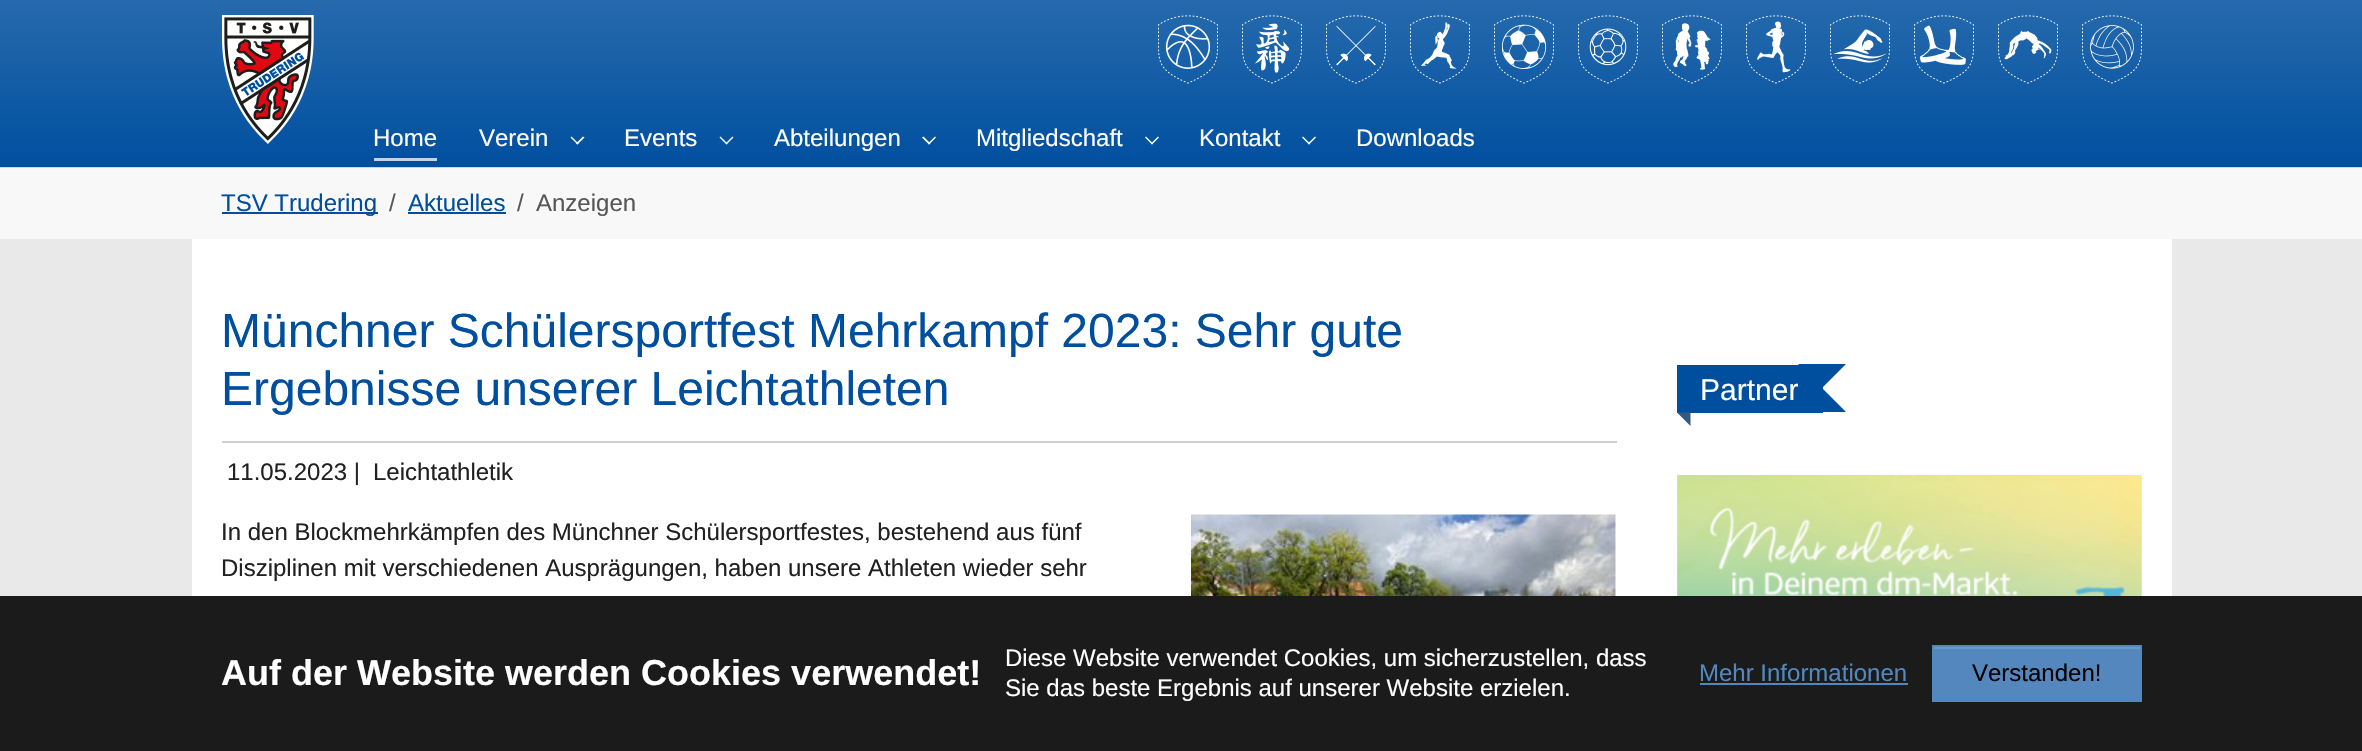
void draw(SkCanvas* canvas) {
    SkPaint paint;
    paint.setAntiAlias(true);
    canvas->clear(0xFFE9E9E9);
    paint.setColor(0xFFF8F8F8);
    canvas->drawRect(SkRect::MakeXYWH(0, 167, 2362, 72), paint);
    paint.setColor(0x26000000);
    canvas->drawPath(SkPathBuilder().moveTo(0, 166).lineTo(0, 168).lineTo(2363, 168).lineTo(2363, 2).lineTo(2362, 2).lineTo(2362, 166).close().detach(), paint);
    {
        const SkColor colors[] = {0xFF266AAD, 0xFF004F9F};
        const float stops[] = {0, 1};
        const SkPoint ends[] = {{1181, 0}, {1181, 167}};
        paint.setShader(SkGradientShader::MakeLinear(ends, colors, stops, 2, SkTileMode::kClamp));
        paint.setAlpha(255);
    }
    canvas->drawRect(SkRect::MakeXYWH(0, 0, 2362, 167), paint);
    canvas->drawImageRect(SkImages::DeferredFromEncodedData(SkData::MakeFromFileName("img1.png")), SkRect::MakeXYWH(222, 15, 92, 129), SkSamplingOptions());
    canvas->drawImageRect(SkImages::DeferredFromEncodedData(SkData::MakeFromFileName("img2.png")), SkRect::MakeXYWH(1158, 15, 60, 69), SkSamplingOptions());
    canvas->drawImageRect(SkImages::DeferredFromEncodedData(SkData::MakeFromFileName("img3.png")), SkRect::MakeXYWH(1242, 15, 60, 69), SkSamplingOptions());
    canvas->drawImageRect(SkImages::DeferredFromEncodedData(SkData::MakeFromFileName("img4.png")), SkRect::MakeXYWH(1326, 15, 60, 69), SkSamplingOptions());
    canvas->drawImageRect(SkImages::DeferredFromEncodedData(SkData::MakeFromFileName("img5.png")), SkRect::MakeXYWH(1410, 15, 60, 69), SkSamplingOptions());
    canvas->drawImageRect(SkImages::DeferredFromEncodedData(SkData::MakeFromFileName("img6.png")), SkRect::MakeXYWH(1494, 15, 60, 69), SkSamplingOptions());
    canvas->drawImageRect(SkImages::DeferredFromEncodedData(SkData::MakeFromFileName("img7.png")), SkRect::MakeXYWH(1578, 15, 60, 69), SkSamplingOptions());
    canvas->drawImageRect(SkImages::DeferredFromEncodedData(SkData::MakeFromFileName("img8.png")), SkRect::MakeXYWH(1662, 15, 60, 69), SkSamplingOptions());
    canvas->drawImageRect(SkImages::DeferredFromEncodedData(SkData::MakeFromFileName("img9.png")), SkRect::MakeXYWH(1746, 15, 60, 69), SkSamplingOptions());
    canvas->drawImageRect(SkImages::DeferredFromEncodedData(SkData::MakeFromFileName("img10.png")), SkRect::MakeXYWH(1830, 15, 60, 69), SkSamplingOptions());
    canvas->drawImageRect(SkImages::DeferredFromEncodedData(SkData::MakeFromFileName("img11.png")), SkRect::MakeXYWH(1914, 15, 60, 69), SkSamplingOptions());
    canvas->drawImageRect(SkImages::DeferredFromEncodedData(SkData::MakeFromFileName("img12.png")), SkRect::MakeXYWH(1998, 15, 60, 69), SkSamplingOptions());
    canvas->drawImageRect(SkImages::DeferredFromEncodedData(SkData::MakeFromFileName("img13.png")), SkRect::MakeXYWH(2082, 15, 60, 69), SkSamplingOptions());
    SkFont font1(fontMgr->matchFamilyStyle("Liberation Sans", SkFontStyle::Normal()), 24);
    font1.setSubpixel(true);
    paint.setShader(nullptr);
    paint.setColor(0xFFFFFFFF);
    canvas->drawString("Home", 373, 146, font1, paint);
    paint.setColor(0xFFC0D3E7);
    canvas->drawRect(SkRect::MakeXYWH(374, 158, 63, 3), paint);
    paint.setColor(0xFFFFFFFF);
    canvas->drawString("Verein", 479, 146, font1, paint);
    canvas->drawPath(SkPathBuilder().moveTo(577.5f, 144.5f).lineTo(570.5f, 137.5f).lineTo(571.5f, 136.5f).lineTo(578.5f, 143.5f).close().detach(), paint);
    canvas->drawPath(SkPathBuilder().moveTo(577.5f, 144.5f).lineTo(576, 143.5f).lineTo(583, 136.5f).lineTo(584.5f, 137.5f).close().detach(), paint);
    canvas->drawString("Events", 624, 146, font1, paint);
    canvas->drawPath(SkPathBuilder().moveTo(726.5f, 144.5f).lineTo(719.5f, 137.5f).lineTo(720.5f, 136.5f).lineTo(727.5f, 143.5f).close().detach(), paint);
    canvas->drawPath(SkPathBuilder().moveTo(726.5f, 144.5f).lineTo(725.5f, 143.5f).lineTo(732.5f, 136.5f).lineTo(733.5f, 137.5f).close().detach(), paint);
    canvas->drawString("Abteilungen", 774, 146, font1, paint);
    canvas->drawPath(SkPathBuilder().moveTo(929, 144.5f).lineTo(922, 137.5f).lineTo(923.5f, 136.5f).lineTo(930.5f, 143.5f).close().detach(), paint);
    canvas->drawPath(SkPathBuilder().moveTo(929, 144.5f).lineTo(928, 143.5f).lineTo(935, 136.5f).lineTo(936, 137.5f).close().detach(), paint);
    canvas->drawString("Mitgliedschaft", 976, 146, font1, paint);
    canvas->drawPath(SkPathBuilder().moveTo(1152, 144.5f).lineTo(1145, 137.5f).lineTo(1146, 136.5f).lineTo(1153, 143.5f).close().detach(), paint);
    canvas->drawPath(SkPathBuilder().moveTo(1152, 144.5f).lineTo(1151, 143.5f).lineTo(1158, 136.5f).lineTo(1159, 137.5f).close().detach(), paint);
    canvas->drawString("Kontakt", 1199, 146, font1, paint);
    canvas->drawPath(SkPathBuilder().moveTo(1309, 144.5f).lineTo(1302, 137.5f).lineTo(1303, 136.5f).lineTo(1310, 143.5f).close().detach(), paint);
    canvas->drawPath(SkPathBuilder().moveTo(1309, 144.5f).lineTo(1308, 143.5f).lineTo(1315, 136.5f).lineTo(1316, 137.5f).close().detach(), paint);
    canvas->drawString("Downloads", 1356, 146, font1, paint);
    paint.setColor(0xFF004F9E);
    canvas->drawRect(SkRect::MakeXYWH(222, 212, 156, 2), paint);
    canvas->drawString("TSV Trudering", 221, 211, font1, paint);
    paint.setColor(0xFF575757);
    canvas->drawString("/", 389, 211, font1, paint);
    paint.setColor(0xFF004F9E);
    canvas->drawString("Aktuelles", 408, 211, font1, paint);
    canvas->drawRect(SkRect::MakeXYWH(408, 212, 98, 2), paint);
    paint.setColor(0xFF575757);
    canvas->drawString("/", 517, 211, font1, paint);
    canvas->drawString("Anzeigen", 536, 211, font1, paint);
    paint.setColor(0xFFFFFFFF);
    canvas->drawRect(SkRect::MakeXYWH(192, 239, 1980, 357), paint);
    paint.setColor(0xFFCECECE);
    canvas->drawRect(SkRect::MakeXYWH(222, 441, 1395, 2), paint);
    SkFont font2(fontMgr->matchFamilyStyle("Liberation Sans", SkFontStyle::Normal()), 48);
    font2.setSubpixel(true);
    paint.setColor(0xFF004F9E);
    canvas->drawString("Münchner Schülersportfest Mehrkampf 2023: Sehr gute", 221, 347, font2, paint);
    canvas->drawString("Ergebnisse unserer Leichtathleten", 221, 405, font2, paint);
    paint.setColor(0xFF212121);
    canvas->drawString("11.05.2023 |", 227, 480, font1, paint);
    canvas->drawString("Leichtathletik", 373, 480, font1, paint);
    canvas->drawString("In den Blockmehrkämpfen des Münchner Schülersportfestes, bestehend aus fünf", 221, 540, font1, paint);
    canvas->drawString("Disziplinen mit verschiedenen Ausprägungen, haben unsere Athleten wieder sehr", 221, 576, font1, paint);
    canvas->drawImageRect(SkImages::DeferredFromEncodedData(SkData::MakeFromFileName("img14.png")), SkRect::MakeXYWH(1191, 514, 425, 82), SkSamplingOptions());
    paint.setColor(0xFF004F9E);
    canvas->drawRect(SkRect::MakeXYWH(1677, 365, 146, 48), paint);
    SkFont font3(fontMgr->matchFamilyStyle("Liberation Sans", SkFontStyle::Normal()), 30);
    font3.setSubpixel(true);
    paint.setColor(0xFFFFFFFF);
    canvas->drawString("Partner", 1700, 400, font3, paint);
    paint.setColor(0xFF004F9E);
    canvas->drawPath(SkPathBuilder().moveTo(1798, 364).lineTo(1846, 364).lineTo(1822, 388).close().moveTo(1846, 412).lineTo(1798, 412).lineTo(1822, 388).close().detach(), paint);
    paint.setColor(0xFF335A81);
    canvas->drawPath(SkPathBuilder().moveTo(1677, 412.5f).lineTo(1690.5f, 412.5f).lineTo(1690.5f, 426).close().detach(), paint);
    canvas->drawImageRect(SkImages::DeferredFromEncodedData(SkData::MakeFromFileName("img15.png")), SkRect::MakeXYWH(1677, 475, 465, 121), SkSamplingOptions());
    paint.setColor(0xFF1B1B1B);
    canvas->drawRect(SkRect::MakeXYWH(0, 596, 2362, 155), paint);
    SkFont font4(fontMgr->matchFamilyStyle("Liberation Sans", SkFontStyle::Bold()), 36);
    font4.setSubpixel(true);
    paint.setColor(0xFFFFFFFF);
    canvas->drawString("Auf der Website werden Cookies verwendet!", 221, 685, font4, paint);
    canvas->drawString("Diese Website verwendet Cookies, um sicherzustellen, dass", 1005, 666, font1, paint);
    canvas->drawString("Sie das beste Ergebnis auf unserer Website erzielen.", 1005, 696, font1, paint);
    paint.setColor(0xFF5387BD);
    canvas->drawString("Mehr Informationen", 1699, 681, font1, paint);
    canvas->drawRect(SkRect::MakeXYWH(1700, 683, 208, 2), paint);
    canvas->drawRect(SkRect::MakeXYWH(1934, 649, 206, 51), paint);
    paint.setColor(0xFF6D99C7);
    canvas->drawRect(SkRect::MakeXYWH(1934, 647, 207, 2), paint);
    paint.setStyle(SkPaint::kStroke_Style);
    paint.setStrokeWidth(2);
    paint.setColor(0xFF5387BD);
    canvas->drawRect(SkRect::MakeXYWH(1933, 646, 208, 55), paint);
    paint.setStyle(SkPaint::kFill_Style);
    paint.setColor(0xFF000000);
    canvas->drawString("Verstanden!", 1972, 681, font1, paint);
}
